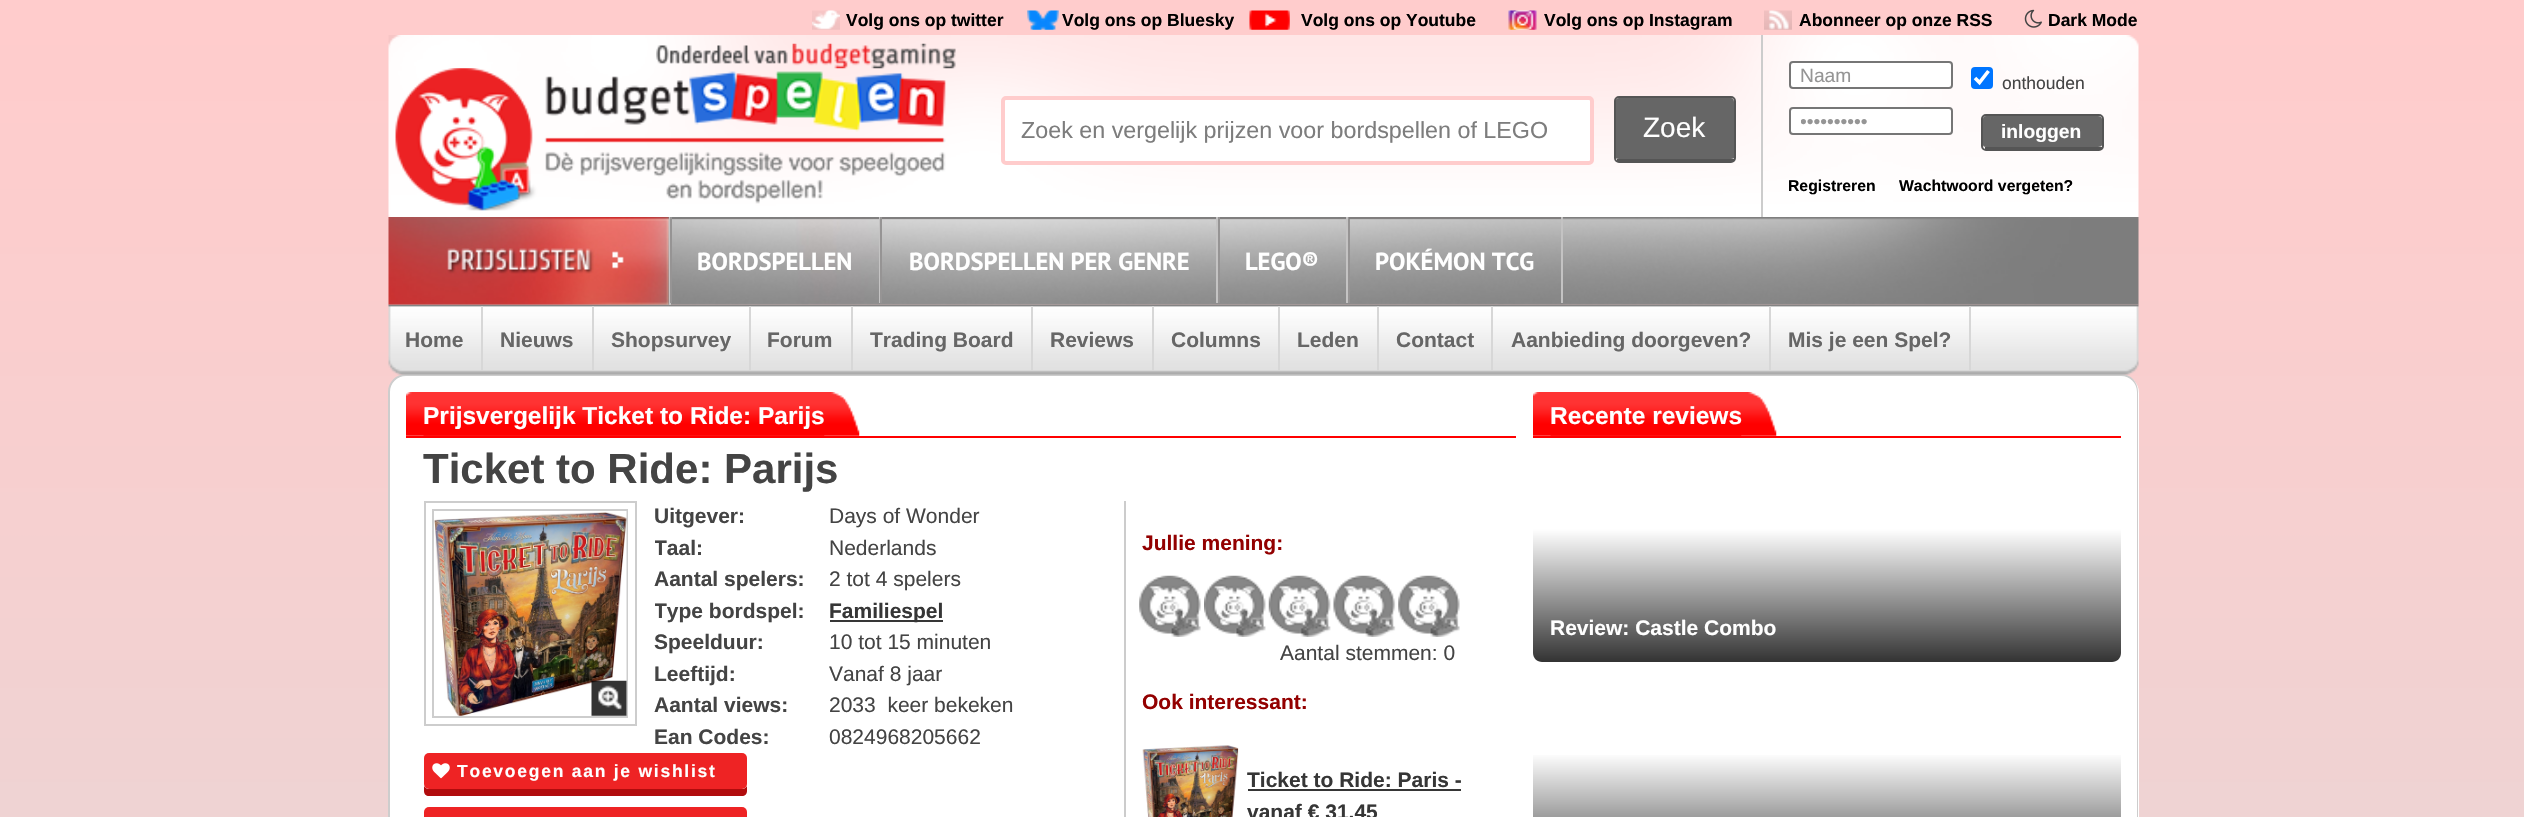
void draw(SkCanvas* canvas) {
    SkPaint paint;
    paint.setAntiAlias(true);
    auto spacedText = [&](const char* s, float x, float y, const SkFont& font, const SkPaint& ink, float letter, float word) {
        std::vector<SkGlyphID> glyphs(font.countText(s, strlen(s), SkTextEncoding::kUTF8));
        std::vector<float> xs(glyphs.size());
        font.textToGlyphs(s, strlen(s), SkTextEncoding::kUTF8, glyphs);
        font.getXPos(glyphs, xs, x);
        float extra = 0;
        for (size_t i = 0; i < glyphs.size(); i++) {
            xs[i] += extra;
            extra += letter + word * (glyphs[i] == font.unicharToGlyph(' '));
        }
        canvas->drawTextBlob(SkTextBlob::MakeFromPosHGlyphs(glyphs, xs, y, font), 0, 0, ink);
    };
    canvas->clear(0xFFFFFFFF);
    canvas->drawImageRect(SkImages::DeferredFromEncodedData(SkData::MakeFromFileName("img1.png")), SkRect::MakeXYWH(0, 0, 2524, 817), SkSamplingOptions());
    canvas->drawImageRect(SkImages::DeferredFromEncodedData(SkData::MakeFromFileName("img2.png")), SkRect::MakeXYWH(812, 10, 28, 20), SkSamplingOptions());
    SkFont font1(fontMgr->matchFamilyStyle("Liberation Sans", SkFontStyle::Bold()), 17.5f);
    font1.setSubpixel(true);
    paint.setColor(0xFF000000);
    canvas->drawString("Volg ons op twitter", 846, 26, font1, paint);
    canvas->drawImageRect(SkImages::DeferredFromEncodedData(SkData::MakeFromFileName("img3.png")), SkRect::MakeXYWH(1027, 10, 32, 20), SkSamplingOptions());
    canvas->drawString("Volg ons op Bluesky", 1062, 26, font1, paint);
    canvas->drawImageRect(SkImages::DeferredFromEncodedData(SkData::MakeFromFileName("img4.png")), SkRect::MakeXYWH(1249, 10, 41, 20), SkSamplingOptions());
    canvas->drawString("Volg ons op Youtube", 1301, 26, font1, paint);
    canvas->drawImageRect(SkImages::DeferredFromEncodedData(SkData::MakeFromFileName("img5.png")), SkRect::MakeXYWH(1508, 10, 29, 20), SkSamplingOptions());
    canvas->drawString("Volg ons op Instagram", 1544, 26, font1, paint);
    canvas->drawImageRect(SkImages::DeferredFromEncodedData(SkData::MakeFromFileName("img6.png")), SkRect::MakeXYWH(1764, 10, 28, 20), SkSamplingOptions());
    canvas->drawString("Abonneer op onze RSS", 1799, 26, font1, paint);
    canvas->drawImageRect(SkImages::DeferredFromEncodedData(SkData::MakeFromFileName("img7.png")), SkRect::MakeXYWH(2024, 9, 18, 19), SkSamplingOptions());
    canvas->drawString("Dark Mode", 2048, 26, font1, paint);
    canvas->drawImageRect(SkImages::DeferredFromEncodedData(SkData::MakeFromFileName("img8.png")), SkRect::MakeXYWH(388, 35, 1751, 182), SkSamplingOptions());
    canvas->drawImageRect(SkImages::DeferredFromEncodedData(SkData::MakeFromFileName("img10.png")), SkRect::MakeXYWH(395, 68, 551, 143), SkSamplingOptions());
    canvas->drawImageRect(SkImages::DeferredFromEncodedData(SkData::MakeFromFileName("img9.png")), SkRect::MakeXYWH(656, 43, 300, 26), SkSamplingOptions());
    paint.setColor(0xFFFFFFFF);
    canvas->drawRoundRect(SkRect::MakeXYWH(1003, 98, 589, 65), 3, 3, paint);
    paint.setStyle(SkPaint::kStroke_Style);
    paint.setStrokeWidth(4);
    paint.setColor(0xFFFFCCCC);
    canvas->drawRoundRect(SkRect::MakeXYWH(1003, 98, 589, 65), 3, 3, paint);
    SkFont font2(fontMgr->matchFamilyStyle("Liberation Sans", SkFontStyle::Normal()), 23.3f);
    font2.setSubpixel(true);
    paint.setStyle(SkPaint::kFill_Style);
    paint.setColor(0xFF7D7D7D);
    canvas->drawString("Zoek en vergelijk prijzen voor bordspellen of LEGO", 1021, 138, font2, paint);
    paint.setColor(0xFF666666);
    canvas->drawPath(SkPathBuilder().moveTo(1619, 98).lineTo(1731, 98).cubicTo(1733, 98, 1734, 100, 1734, 102).lineTo(1734, 158).cubicTo(1734, 158, 1733, 159, 1731, 159).lineTo(1619, 159).cubicTo(1617, 159, 1615, 158, 1615, 158).lineTo(1615, 102).cubicTo(1615, 100, 1617, 98, 1619, 98).close().detach(), paint);
    paint.setStyle(SkPaint::kStroke_Style);
    paint.setStrokeWidth(2);
    paint.setColor(0xFF555555);
    canvas->drawRoundRect(SkRect::MakeXYWH(1615, 97, 120, 65), 4, 4, paint);
    paint.setStyle(SkPaint::kFill_Style);
    canvas->drawRect(SkRect::MakeXYWH(1617, 159, 117, 2), paint);
    SkFont font3(fontMgr->matchFamilyStyle("Liberation Sans", SkFontStyle::Normal()), 28);
    font3.setSubpixel(true);
    paint.setColor(0xFFFFFFFF);
    canvas->drawString("Zoek", 1643, 137, font3, paint);
    paint.setColor(0xFFCCCCCC);
    canvas->drawRect(SkRect::MakeXYWH(1761, 35, 2, 182), paint);
    paint.setColor(0xFFFFFFFF);
    canvas->drawRoundRect(SkRect::MakeXYWH(1790, 62, 162, 26), 3, 3, paint);
    paint.setStyle(SkPaint::kStroke_Style);
    paint.setColor(0xFF767676);
    canvas->drawRoundRect(SkRect::MakeXYWH(1790, 62, 162, 26), 3, 3, paint);
    SkFont font4(fontMgr->matchFamilyStyle("Liberation Sans", SkFontStyle::Normal()), 19.25f);
    font4.setSubpixel(true);
    paint.setStyle(SkPaint::kFill_Style);
    paint.setColor(0xFF959595);
    canvas->drawString("Naam", 1800, 82, font4, paint);
    paint.setColor(0xFFFFFFFF);
    canvas->drawRoundRect(SkRect::MakeXYWH(1790, 108, 162, 26), 3, 3, paint);
    paint.setStyle(SkPaint::kStroke_Style);
    paint.setColor(0xFF767676);
    canvas->drawRoundRect(SkRect::MakeXYWH(1790, 108, 162, 26), 3, 3, paint);
    canvas->save();
    canvas->clipRect(SkRect::MakeXYWH(1801, 110, 149, 21));
    paint.setStyle(SkPaint::kFill_Style);
    paint.setColor(0xFF959595);
    canvas->drawString("••••••••••", 1800, 128, font4, paint);
    canvas->restore();
    paint.setColor(0xFF0075FF);
    canvas->drawRoundRect(SkRect::MakeXYWH(1971, 67, 22, 22), 4, 4, paint);
    paint.setStyle(SkPaint::kStroke_Style);
    paint.setStrokeWidth(3.6f);
    paint.setColor(0xFFFFFFFF);
    canvas->drawPath(SkPathBuilder().moveTo(1975, 78).lineTo(1979.5f, 82.5f).lineTo(1988.5f, 71).detach(), paint);
    SkFont font5(fontMgr->matchFamilyStyle("Liberation Sans", SkFontStyle::Normal()), 17.5f);
    font5.setSubpixel(true);
    paint.setStyle(SkPaint::kFill_Style);
    paint.setColor(0xFF444444);
    canvas->drawString("onthouden", 2002, 89, font5, paint);
    paint.setColor(0xFF666666);
    canvas->drawPath(SkPathBuilder().moveTo(1986, 116).lineTo(2098, 116).cubicTo(2100, 116, 2102, 117, 2102, 119).lineTo(2102, 145).cubicTo(2102, 146, 2100, 147, 2098, 147).lineTo(1986, 147).cubicTo(1984, 147, 1983, 146, 1983, 145).lineTo(1983, 119).cubicTo(1983, 117, 1984, 116, 1986, 116).close().detach(), paint);
    paint.setStyle(SkPaint::kStroke_Style);
    paint.setStrokeWidth(2);
    paint.setColor(0xFF555555);
    canvas->drawRoundRect(SkRect::MakeXYWH(1982, 115, 121, 35), 4, 4, paint);
    paint.setStyle(SkPaint::kFill_Style);
    canvas->drawRect(SkRect::MakeXYWH(1985, 147, 117, 2), paint);
    SkFont font6(fontMgr->matchFamilyStyle("Liberation Sans", SkFontStyle::Bold()), 19.25f);
    font6.setSubpixel(true);
    paint.setColor(0xFFFFFFFF);
    canvas->drawString("inloggen", 2001, 138, font6, paint);
    SkFont font7(fontMgr->matchFamilyStyle("Liberation Sans", SkFontStyle::Bold()), 15.75f);
    font7.setSubpixel(true);
    paint.setColor(0xFF000000);
    canvas->drawString("Registreren", 1788, 191, font7, paint);
    canvas->drawString("Wachtwoord vergeten?", 1899, 191, font7, paint);
    paint.setColor(0xFFFFFFFF);
    canvas->drawPath(SkPathBuilder().moveTo(407, 375).lineTo(2121, 375).cubicTo(2131, 375, 2139, 383, 2139, 393).lineTo(2139, 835).lineTo(389, 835).lineTo(389, 393).cubicTo(389, 383, 397, 375, 407, 375).close().detach(), paint);
    paint.setColor(0xFFCDCDCD);
    canvas->drawPath(SkPathBuilder(SkPathFillType::kEvenOdd).moveTo(406, 374).lineTo(2121, 374).cubicTo(2131, 374, 2138, 382, 2138, 392).lineTo(2138, 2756).lineTo(388, 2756).lineTo(388, 392).cubicTo(388, 382, 396, 374, 406, 374).close().moveTo(406, 376).lineTo(2121, 376).cubicTo(2130, 376, 2137, 383, 2137, 392).lineTo(2137, 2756).lineTo(390, 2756).lineTo(390, 392).cubicTo(390, 383, 397, 376, 406, 376).close().detach(), paint);
    canvas->drawImageRect(SkImages::DeferredFromEncodedData(SkData::MakeFromFileName("img12.png")), SkRect::MakeXYWH(388, 304, 1751, 71), SkSamplingOptions());
    canvas->drawImageRect(SkImages::DeferredFromEncodedData(SkData::MakeFromFileName("img11.png")), SkRect::MakeXYWH(388, 217, 1751, 88), SkSamplingOptions());
    paint.setColor(0xFFC4C3C3);
    canvas->drawRect(SkRect::MakeXYWH(669, 217, 2, 88), paint);
    canvas->drawRect(SkRect::MakeXYWH(879, 217, 1, 86), paint);
    paint.setColor(0xFF969494);
    canvas->drawRect(SkRect::MakeXYWH(670, 217, 2, 86), paint);
    paint.setColor(0xFF807E7E);
    canvas->drawRect(SkRect::MakeXYWH(672, 218, 207, 1), paint);
    SkFont font8(fontMgr->matchFamilyStyle("PT Sans", SkFontStyle::Bold()), 24.5f);
    font8.setSubpixel(true);
    paint.setColor(0xFFFFFFFF);
    canvas->drawString("BORDSPELLEN", 697, 270, font8, paint);
    paint.setColor(0xFFC4C3C3);
    canvas->drawRect(SkRect::MakeXYWH(1216, 217, 2, 86), paint);
    paint.setColor(0xFF969494);
    canvas->drawRect(SkRect::MakeXYWH(880, 217, 2, 86), paint);
    paint.setColor(0xFF807E7E);
    canvas->drawRect(SkRect::MakeXYWH(882, 218, 334, 1), paint);
    paint.setColor(0xFFFFFFFF);
    canvas->drawString("BORDSPELLEN PER GENRE", 909, 270, font8, paint);
    paint.setColor(0xFFC4C3C3);
    canvas->drawRect(SkRect::MakeXYWH(1346, 217, 2, 86), paint);
    paint.setColor(0xFF969494);
    canvas->drawRect(SkRect::MakeXYWH(1218, 217, 2, 86), paint);
    paint.setColor(0xFF807E7E);
    canvas->drawRect(SkRect::MakeXYWH(1220, 218, 126, 1), paint);
    paint.setColor(0xFFFFFFFF);
    canvas->drawString("LEGO®", 1245, 270, font8, paint);
    paint.setColor(0xFFC4C3C3);
    canvas->drawRect(SkRect::MakeXYWH(1561, 217, 2, 86), paint);
    paint.setColor(0xFF969494);
    canvas->drawRect(SkRect::MakeXYWH(1348, 217, 2, 86), paint);
    paint.setColor(0xFF807E7E);
    canvas->drawRect(SkRect::MakeXYWH(1349, 217, 212, 2), paint);
    paint.setColor(0xFFFFFFFF);
    canvas->drawString("POKÉMON TCG", 1375, 270, font8, paint);
    paint.setColor(0xFFD7D7D7);
    canvas->drawRect(SkRect::MakeXYWH(481, 306, 2, 65), paint);
    SkFont font9(fontMgr->matchFamilyStyle("Liberation Sans", SkFontStyle::Bold()), 21);
    font9.setSubpixel(true);
    paint.setColor(0xFF666666);
    canvas->drawString("Home", 405, 347, font9, paint);
    paint.setColor(0xFFD7D7D7);
    canvas->drawRect(SkRect::MakeXYWH(592, 306, 2, 65), paint);
    paint.setColor(0xFF666666);
    canvas->drawString("Nieuws", 500, 347, font9, paint);
    paint.setColor(0xFFD7D7D7);
    canvas->drawRect(SkRect::MakeXYWH(749, 306, 2, 65), paint);
    paint.setColor(0xFF666666);
    canvas->drawString("Shopsurvey", 611, 347, font9, paint);
    paint.setColor(0xFFD7D7D7);
    canvas->drawRect(SkRect::MakeXYWH(851, 306, 2, 65), paint);
    paint.setColor(0xFF666666);
    canvas->drawString("Forum", 767, 347, font9, paint);
    paint.setColor(0xFFD7D7D7);
    canvas->drawRect(SkRect::MakeXYWH(1031, 306, 2, 65), paint);
    paint.setColor(0xFF666666);
    canvas->drawString("Trading Board", 870, 347, font9, paint);
    paint.setColor(0xFFD7D7D7);
    canvas->drawRect(SkRect::MakeXYWH(1152, 306, 2, 65), paint);
    paint.setColor(0xFF666666);
    canvas->drawString("Reviews", 1050, 347, font9, paint);
    paint.setColor(0xFFD7D7D7);
    canvas->drawRect(SkRect::MakeXYWH(1278, 306, 2, 65), paint);
    paint.setColor(0xFF666666);
    canvas->drawString("Columns", 1171, 347, font9, paint);
    paint.setColor(0xFFD7D7D7);
    canvas->drawRect(SkRect::MakeXYWH(1377, 306, 2, 65), paint);
    paint.setColor(0xFF666666);
    canvas->drawString("Leden", 1297, 347, font9, paint);
    paint.setColor(0xFFD7D7D7);
    canvas->drawRect(SkRect::MakeXYWH(1491, 306, 2, 65), paint);
    paint.setColor(0xFF666666);
    canvas->drawString("Contact", 1396, 347, font9, paint);
    paint.setColor(0xFFD7D7D7);
    canvas->drawRect(SkRect::MakeXYWH(1769, 306, 2, 65), paint);
    paint.setColor(0xFF666666);
    canvas->drawString("Aanbieding doorgeven?", 1511, 347, font9, paint);
    paint.setColor(0xFFD7D7D7);
    canvas->drawRect(SkRect::MakeXYWH(1969, 306, 2, 65), paint);
    paint.setColor(0xFF666666);
    canvas->drawString("Mis je een Spel?", 1788, 347, font9, paint);
    paint.setColor(0xFFFF0000);
    canvas->drawRect(SkRect::MakeXYWH(406, 436, 1110, 2), paint);
    canvas->drawImageRect(SkImages::DeferredFromEncodedData(SkData::MakeFromFileName("img13.png")), SkRect::MakeXYWH(423, 392, 437, 44), SkSamplingOptions());
    canvas->drawImageRect(SkImages::DeferredFromEncodedData(SkData::MakeFromFileName("img14.png")), SkRect::MakeXYWH(406, 392, 419, 44), SkSamplingOptions());
    SkFont font10(fontMgr->matchFamilyStyle("Liberation Sans", SkFontStyle::Bold()), 24.5f);
    font10.setSubpixel(true);
    paint.setColor(0xFFFFFFFF);
    canvas->drawString("Prijsvergelijk Ticket to Ride: Parijs", 423, 424, font10, paint);
    SkFont font11(fontMgr->matchFamilyStyle("Liberation Sans", SkFontStyle::Bold()), 42);
    font11.setSubpixel(true);
    paint.setColor(0xFF444444);
    canvas->drawString("Ticket to Ride: Parijs", 423, 483, font11, paint);
    paint.setStyle(SkPaint::kStroke_Style);
    paint.setColor(0xFFCDCDCD);
    canvas->drawRect(SkRect::MakeXYWH(425, 502, 211, 223), paint);
    canvas->drawRect(SkRect::MakeXYWH(433, 510, 194, 207), paint);
    canvas->drawImageRect(SkImages::DeferredFromEncodedData(SkData::MakeFromFileName("img15.png")), SkRect::MakeXYWH(434, 511, 193, 205), SkSamplingOptions());
    canvas->drawImageRect(SkImages::DeferredFromEncodedData(SkData::MakeFromFileName("img16.png")), SkRect::MakeXYWH(591, 680, 36, 36), SkSamplingOptions());
    canvas->save();
    canvas->clipRect(SkRect::MakeXYWH(655, 501, 175, 31));
    paint.setStyle(SkPaint::kFill_Style);
    paint.setColor(0xFF444444);
    canvas->drawString("Uitgever:", 654, 523, font9, paint);
    canvas->restore();
    SkFont font12(fontMgr->matchFamilyStyle("Liberation Sans", SkFontStyle::Normal()), 21);
    font12.setSubpixel(true);
    canvas->drawString("Days of Wonder", 829, 523, font12, paint);
    canvas->save();
    canvas->clipRect(SkRect::MakeXYWH(655, 532, 175, 32));
    canvas->drawString("Taal:", 654, 555, font9, paint);
    canvas->restore();
    canvas->drawString("Nederlands", 829, 555, font12, paint);
    canvas->drawString("Aantal spelers:", 654, 586, font9, paint);
    canvas->drawString("2 tot 4 spelers", 829, 586, font12, paint);
    canvas->save();
    canvas->clipRect(SkRect::MakeXYWH(655, 595, 175, 32));
    canvas->drawString("Type bordspel:", 654, 618, font9, paint);
    canvas->restore();
    paint.setColor(0xFF363636);
    canvas->drawRect(SkRect::MakeXYWH(830, 620, 113, 2), paint);
    canvas->drawString("Familiespel", 829, 618, font9, paint);
    paint.setColor(0xFF444444);
    canvas->drawString("Speelduur:", 654, 649, font9, paint);
    canvas->drawString("10 tot 15 minuten", 829, 649, font12, paint);
    canvas->drawString("Leeftijd:", 654, 681, font9, paint);
    canvas->drawString("Vanaf 8 jaar", 829, 681, font12, paint);
    canvas->drawString("Aantal views:", 654, 712, font9, paint);
    canvas->drawString("2033  keer bekeken", 829, 712, font12, paint);
    canvas->drawString("Ean Codes:", 654, 744, font9, paint);
    canvas->drawString("0824968205662", 829, 744, font12, paint);
    paint.setColor(0xFFB10C0D);
    canvas->drawPath(SkPathBuilder().moveTo(424, 786).lineTo(424, 791).cubicTo(424, 794, 426, 796, 429, 796).lineTo(742, 796).cubicTo(745, 796, 747, 794, 747, 791).lineTo(747, 786).cubicTo(746, 788, 744, 789, 742, 789).lineTo(429, 789).cubicTo(427, 789, 425, 788, 424, 786).close().detach(), paint);
    paint.setColor(0xFFEE2324);
    canvas->drawRoundRect(SkRect::MakeXYWH(424, 753, 323, 36), 5, 5, paint);
    canvas->drawImageRect(SkImages::DeferredFromEncodedData(SkData::MakeFromFileName("img17.png")), SkRect::MakeXYWH(432, 763, 18, 16), SkSamplingOptions());
    paint.setColor(0xFFFFFFFF);
    spacedText("Toevoegen aan je wishlist", 457, 777, font1, paint, 1.75f, 0);
    paint.setColor(0xFFEE2324);
    canvas->drawRoundRect(SkRect::MakeXYWH(424, 807, 323, 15), 5, 5, paint);
    paint.setColor(0xFFCCCCCC);
    canvas->drawRect(SkRect::MakeXYWH(1124, 501, 2, 316), paint);
    paint.setColor(0xFF930000);
    canvas->drawString("Jullie mening:", 1142, 550, font9, paint);
    canvas->drawImageRect(SkImages::DeferredFromEncodedData(SkData::MakeFromFileName("img18.png")), SkRect::MakeXYWH(1139, 575, 62, 62), SkSamplingOptions());
    canvas->drawImageRect(SkImages::DeferredFromEncodedData(SkData::MakeFromFileName("img19.png")), SkRect::MakeXYWH(1204, 575, 62, 62), SkSamplingOptions());
    canvas->drawImageRect(SkImages::DeferredFromEncodedData(SkData::MakeFromFileName("img20.png")), SkRect::MakeXYWH(1268, 575, 63, 62), SkSamplingOptions());
    canvas->drawImageRect(SkImages::DeferredFromEncodedData(SkData::MakeFromFileName("img21.png")), SkRect::MakeXYWH(1333, 575, 63, 62), SkSamplingOptions());
    canvas->drawImageRect(SkImages::DeferredFromEncodedData(SkData::MakeFromFileName("img22.png")), SkRect::MakeXYWH(1398, 575, 62, 62), SkSamplingOptions());
    paint.setColor(0xFF444444);
    canvas->drawString("Aantal stemmen: 0", 1280, 660, font12, paint);
    paint.setColor(0xFF930000);
    canvas->drawString("Ook interessant:", 1142, 709, font9, paint);
    canvas->drawImageRect(SkImages::DeferredFromEncodedData(SkData::MakeFromFileName("img23.png")), SkRect::MakeXYWH(1142, 745, 97, 72), SkSamplingOptions());
    paint.setColor(0xFF363636);
    canvas->drawString("Ticket to Ride: Paris -", 1247, 787, font9, paint);
    canvas->drawRect(SkRect::MakeXYWH(1248, 789, 213, 2), paint);
    canvas->drawString("vanaf € 31.45", 1247, 819, font9, paint);
    paint.setColor(0xFFFF0000);
    canvas->drawRect(SkRect::MakeXYWH(1533, 436, 588, 2), paint);
    canvas->drawImageRect(SkImages::DeferredFromEncodedData(SkData::MakeFromFileName("img24.png")), SkRect::MakeXYWH(1550, 392, 227, 44), SkSamplingOptions());
    canvas->drawImageRect(SkImages::DeferredFromEncodedData(SkData::MakeFromFileName("img25.png")), SkRect::MakeXYWH(1533, 392, 209, 44), SkSamplingOptions());
    paint.setColor(0xFFFFFFFF);
    canvas->drawString("Recente reviews", 1550, 424, font10, paint);
    {
        const SkColor colors[] = {0xFFFFFFFF, 0xFF333333};
        const float stops[] = {0, 1};
        const SkPoint ends[] = {{1827, 529}, {1827, 662}};
        paint.setShader(SkGradientShader::MakeLinear(ends, colors, stops, 2, SkTileMode::kClamp));
        paint.setAlpha(255);
    }
    canvas->drawPath(SkPathBuilder().moveTo(1533, 529).lineTo(2121, 529).lineTo(2121, 653).cubicTo(2121, 658, 2117, 662, 2112, 662).lineTo(1542, 662).cubicTo(1537, 662, 1533, 658, 1533, 653).close().detach(), paint);
    paint.setShader(nullptr);
    paint.setColor(0xFFFFFFFF);
    canvas->drawString("Review: Castle Combo", 1550, 635, font9, paint);
    {
        const SkColor colors[] = {0xFFFFFFFF, 0xFF333333};
        const float stops[] = {0, 1};
        const SkPoint ends[] = {{1827, 753}, {1827, 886}};
        paint.setShader(SkGradientShader::MakeLinear(ends, colors, stops, 2, SkTileMode::kClamp));
        paint.setAlpha(255);
    }
    canvas->drawRect(SkRect::MakeXYWH(1533, 755, 588, 62), paint);
}
